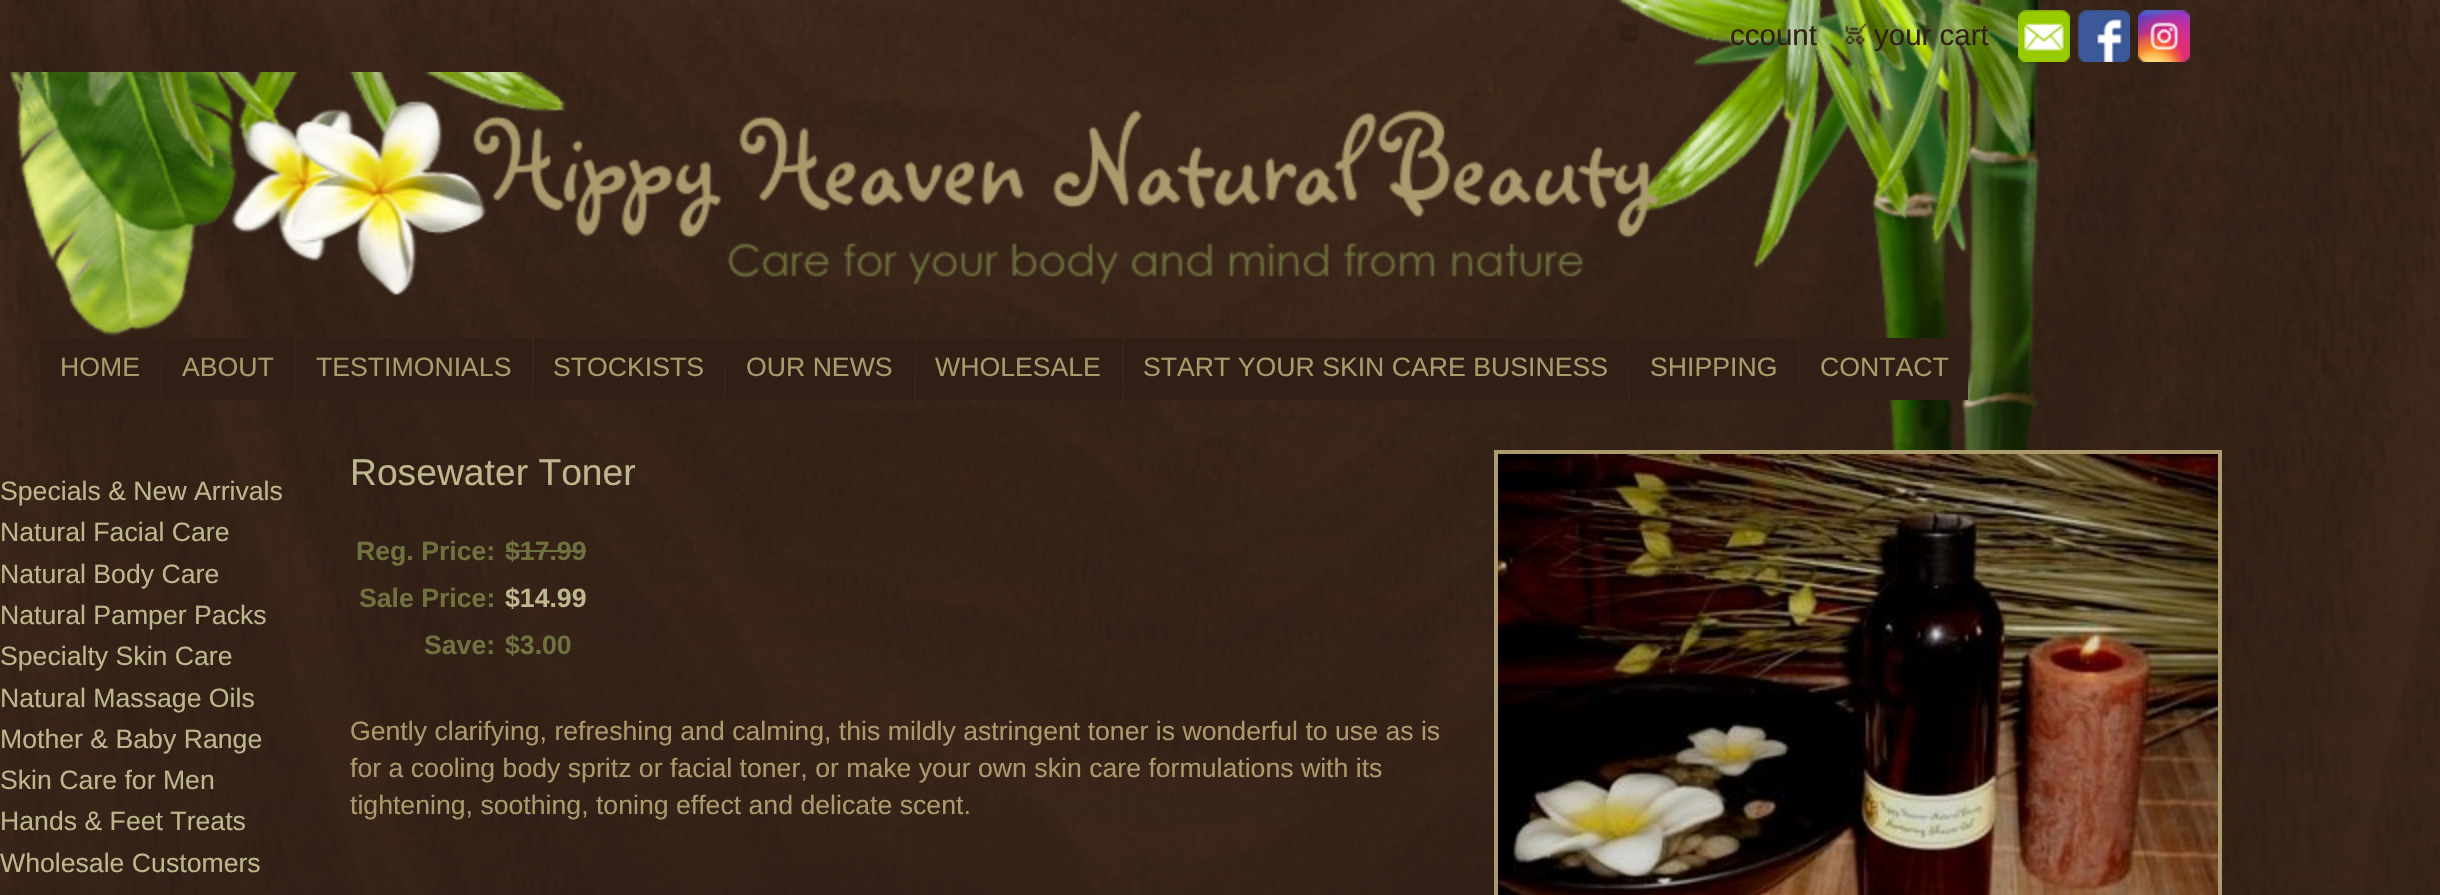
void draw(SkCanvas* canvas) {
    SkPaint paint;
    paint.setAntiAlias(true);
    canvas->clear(0xFFFFFFFF);
    canvas->drawImageRect(SkImages::DeferredFromEncodedData(SkData::MakeFromFileName("img1.png")), SkRect::MakeXYWH(0, 0, 2440, 895), SkSamplingOptions());
    canvas->drawImageRect(SkImages::DeferredFromEncodedData(SkData::MakeFromFileName("img2.png")), SkRect::MakeXYWH(1617, 0, 423, 450), SkSamplingOptions());
    canvas->drawImageRect(SkImages::DeferredFromEncodedData(SkData::MakeFromFileName("img3.png")), SkRect::MakeXYWH(1620, 24, 18, 18), SkSamplingOptions());
    SkFont font1(fontMgr->matchFamilyStyle("Liberation Sans", SkFontStyle::Normal()), 29.5f);
    font1.setSubpixel(true);
    paint.setColor(0xFF2F1F15);
    canvas->drawString("ccount", 1730, 45, font1, paint);
    canvas->drawImageRect(SkImages::DeferredFromEncodedData(SkData::MakeFromFileName("img4.png")), SkRect::MakeXYWH(1845, 23, 21, 21), SkSamplingOptions());
    canvas->drawString("your cart", 1874, 45, font1, paint);
    canvas->drawImageRect(SkImages::DeferredFromEncodedData(SkData::MakeFromFileName("img5.png")), SkRect::MakeXYWH(2018, 10, 52, 52), SkSamplingOptions());
    canvas->drawImageRect(SkImages::DeferredFromEncodedData(SkData::MakeFromFileName("img6.png")), SkRect::MakeXYWH(2078, 10, 52, 52), SkSamplingOptions());
    canvas->drawImageRect(SkImages::DeferredFromEncodedData(SkData::MakeFromFileName("img7.png")), SkRect::MakeXYWH(2138, 10, 52, 52), SkSamplingOptions());
    canvas->drawImageRect(SkImages::DeferredFromEncodedData(SkData::MakeFromFileName("img8.png")), SkRect::MakeXYWH(9, 72, 1651, 264), SkSamplingOptions());
    canvas->drawRect(SkRect::MakeXYWH(40, 338, 120, 62), paint);
    SkFont font2(fontMgr->matchFamilyStyle("Liberation Sans", SkFontStyle::Normal()), 26.65f);
    font2.setSubpixel(true);
    paint.setColor(0xFFAB9A6C);
    canvas->drawString("HOME", 60, 376, font2, paint);
    paint.setColor(0xFF2F1F15);
    canvas->drawRect(SkRect::MakeXYWH(162, 338, 132, 62), paint);
    paint.setColor(0xFFAB9A6C);
    canvas->drawString("ABOUT", 182, 376, font2, paint);
    paint.setColor(0xFF2F1F15);
    canvas->drawRect(SkRect::MakeXYWH(296, 338, 236, 62), paint);
    paint.setColor(0xFFAB9A6C);
    canvas->drawString("TESTIMONIALS", 316, 376, font2, paint);
    paint.setColor(0xFF2F1F15);
    canvas->drawRect(SkRect::MakeXYWH(534, 338, 190, 62), paint);
    paint.setColor(0xFFAB9A6C);
    canvas->drawString("STOCKISTS", 553, 376, font2, paint);
    paint.setColor(0xFF2F1F15);
    canvas->drawRect(SkRect::MakeXYWH(726, 338, 188, 62), paint);
    paint.setColor(0xFFAB9A6C);
    canvas->drawString("OUR NEWS", 746, 376, font2, paint);
    paint.setColor(0xFF2F1F15);
    canvas->drawRect(SkRect::MakeXYWH(916, 338, 206, 62), paint);
    paint.setColor(0xFFAB9A6C);
    canvas->drawString("WHOLESALE", 935, 376, font2, paint);
    paint.setColor(0xFF2F1F15);
    canvas->drawRect(SkRect::MakeXYWH(1124, 338, 504, 62), paint);
    paint.setColor(0xFFAB9A6C);
    canvas->drawString("START YOUR SKIN CARE BUSINESS", 1143, 376, font2, paint);
    paint.setColor(0xFF2F1F15);
    canvas->drawRect(SkRect::MakeXYWH(1630, 338, 168, 62), paint);
    paint.setColor(0xFFAB9A6C);
    canvas->drawString("SHIPPING", 1650, 376, font2, paint);
    paint.setColor(0xFF2F1F15);
    canvas->drawRect(SkRect::MakeXYWH(1800, 338, 168, 62), paint);
    paint.setColor(0xFFAB9A6C);
    canvas->drawString("CONTACT", 1820, 376, font2, paint);
    paint.setColor(0xFFBCB78D);
    canvas->drawString("Specials & New Arrivals", 0, 500, font2, paint);
    canvas->drawString("Natural Facial Care", 0, 541, font2, paint);
    canvas->drawString("Natural Body Care", 0, 583, font2, paint);
    canvas->drawString("Natural Pamper Packs", 0, 624, font2, paint);
    canvas->drawString("Specialty Skin Care", 0, 665, font2, paint);
    canvas->drawString("Natural Massage Oils", 0, 707, font2, paint);
    canvas->drawString("Mother & Baby Range", 0, 748, font2, paint);
    canvas->drawString("Skin Care for Men", 0, 789, font2, paint);
    canvas->drawString("Hands & Feet Treats", 0, 830, font2, paint);
    canvas->drawString("Wholesale Customers", 0, 872, font2, paint);
    SkFont font3(fontMgr->matchFamilyStyle("Liberation Sans", SkFontStyle::Normal()), 37.25f);
    font3.setSubpixel(true);
    canvas->drawString("Rosewater Toner", 350, 485, font3, paint);
    SkFont font4(fontMgr->matchFamilyStyle("Liberation Sans", SkFontStyle::Bold()), 26.65f);
    font4.setSubpixel(true);
    paint.setColor(0xFF6F723F);
    canvas->drawString("Reg. Price:", 356, 560, font4, paint);
    canvas->drawString("$17.99", 505, 560, font4, paint);
    canvas->drawRect(SkRect::MakeXYWH(506, 550, 80, 2), paint);
    canvas->drawString("Sale Price:", 359, 607, font4, paint);
    paint.setColor(0xFFBCB78D);
    canvas->drawString("$14.99", 505, 607, font4, paint);
    paint.setColor(0xFF6F723F);
    canvas->drawString("Save:", 424, 654, font4, paint);
    canvas->drawString("$3.00", 505, 654, font4, paint);
    paint.setColor(0xFFAB9A6C);
    canvas->drawString("Gently clarifying, refreshing and calming, this mildly astringent toner is wonderful to use as is", 350, 740, font2, paint);
    canvas->drawString("for a cooling body spritz or facial toner, or make your own skin care formulations with its", 350, 777, font2, paint);
    canvas->drawString("tightening, soothing, toning effect and delicate scent.", 350, 814, font2, paint);
    paint.setStyle(SkPaint::kStroke_Style);
    paint.setStrokeWidth(4);
    canvas->drawRect(SkRect::MakeXYWH(1496, 452, 724, 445), paint);
    canvas->drawImageRect(SkImages::DeferredFromEncodedData(SkData::MakeFromFileName("img9.png")), SkRect::MakeXYWH(1498, 454, 720, 441), SkSamplingOptions());
}
